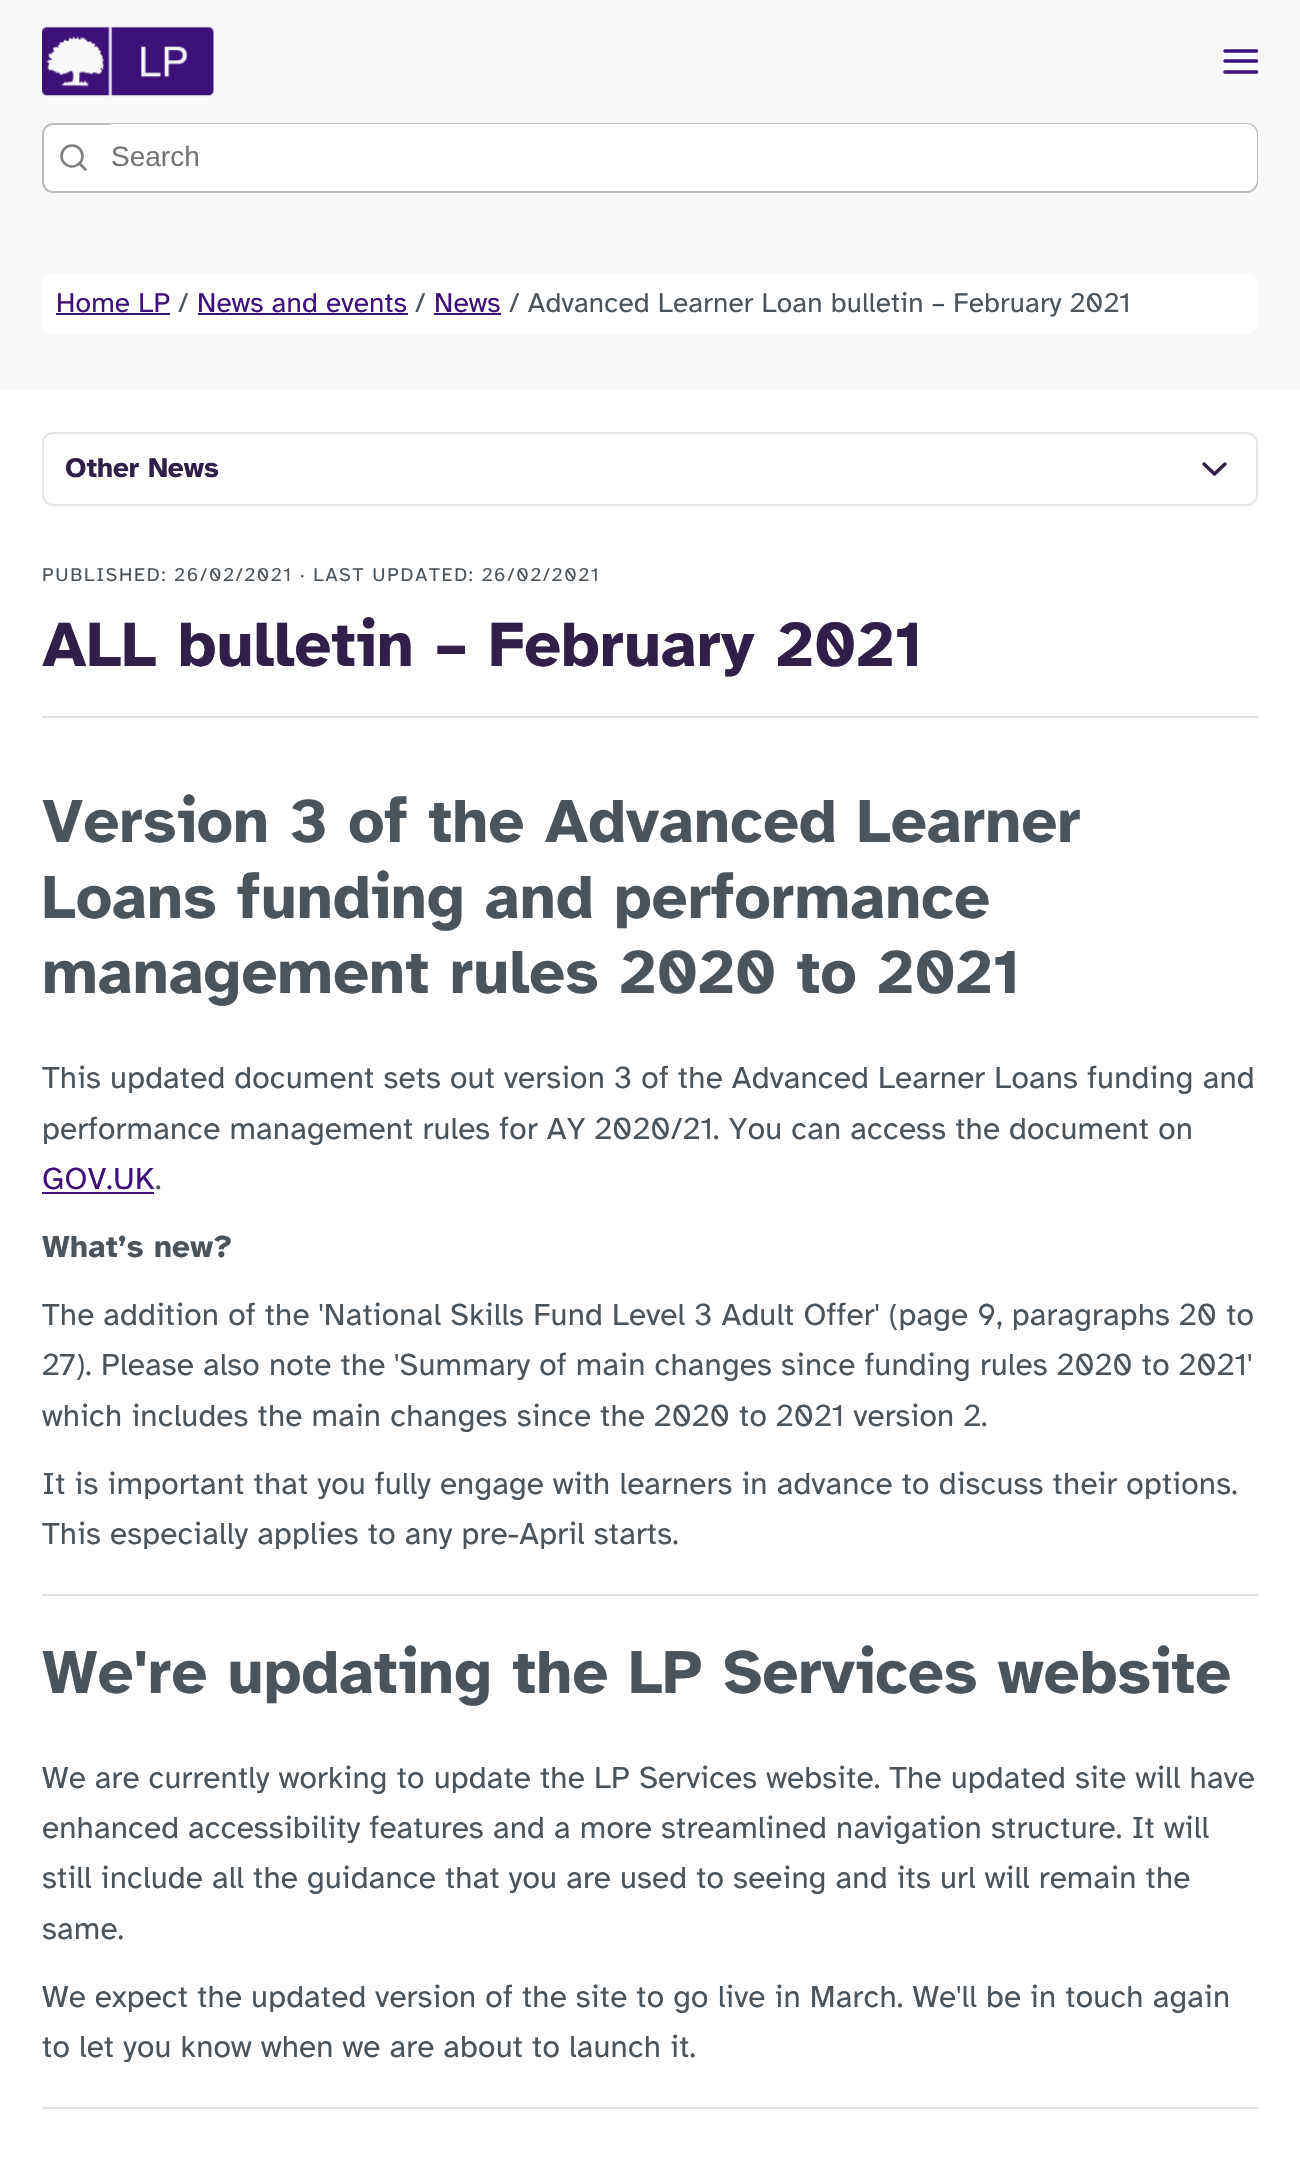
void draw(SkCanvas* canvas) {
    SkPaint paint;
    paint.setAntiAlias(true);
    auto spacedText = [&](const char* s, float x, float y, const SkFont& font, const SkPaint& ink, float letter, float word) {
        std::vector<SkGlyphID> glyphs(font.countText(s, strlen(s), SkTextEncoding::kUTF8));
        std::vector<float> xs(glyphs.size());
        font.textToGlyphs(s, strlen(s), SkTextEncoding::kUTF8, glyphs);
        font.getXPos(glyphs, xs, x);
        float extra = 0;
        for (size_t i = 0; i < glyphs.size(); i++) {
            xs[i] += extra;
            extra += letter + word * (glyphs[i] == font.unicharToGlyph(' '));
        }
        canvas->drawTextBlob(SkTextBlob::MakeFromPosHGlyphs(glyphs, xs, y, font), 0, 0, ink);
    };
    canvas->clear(0xFFF9F9F9);
    canvas->drawImageRect(SkImages::DeferredFromEncodedData(SkData::MakeFromFileName("img1.png")), SkRect::MakeXYWH(42, 26, 172, 71), SkSamplingOptions());
    paint.setStyle(SkPaint::kStroke_Style);
    paint.setStrokeWidth(3.5f);
    paint.setStrokeCap(SkPaint::kRound_Cap);
    paint.setStrokeJoin(SkPaint::kRound_Join);
    paint.setColor(0xFF3E107A);
    canvas->drawPath(SkPathBuilder().moveTo(1225, 61).lineTo(1256.5f, 61).moveTo(1225, 51).lineTo(1256.5f, 51).moveTo(1225, 72).lineTo(1256.5f, 72).detach(), paint);
    paint.setStyle(SkPaint::kFill_Style);
    paint.setColor(0xFFFFFFFF);
    canvas->drawRoundRect(SkRect::MakeXYWH(43, 124, 1214, 68), 10, 10, paint);
    paint.setStyle(SkPaint::kStroke_Style);
    paint.setStrokeWidth(2);
    paint.setStrokeCap(SkPaint::kButt_Cap);
    paint.setStrokeJoin(SkPaint::kMiter_Join);
    paint.setColor(0xFFBDBDBD);
    canvas->drawRoundRect(SkRect::MakeXYWH(43, 124, 1214, 68), 10, 10, paint);
    paint.setStrokeWidth(2.6f);
    paint.setColor(0xFF808080);
    canvas->drawCircle(72, 156, 10.5f, paint);
    paint.setStyle(SkPaint::kFill_Style);
    paint.setColor(0xFFFFFFFF);
    canvas->drawRoundRect(SkRect::MakeXYWH(103, 124, 1154, 67), 11, 11, paint);
    SkFont font1(fontMgr->matchFamilyStyle("Liberation Sans", SkFontStyle::Normal()), 28);
    font1.setSubpixel(true);
    paint.setColor(0xFF757575);
    canvas->drawString("Search", 111, 166, font1, paint);
    paint.setStyle(SkPaint::kStroke_Style);
    paint.setStrokeCap(SkPaint::kRound_Cap);
    paint.setStrokeJoin(SkPaint::kRound_Join);
    paint.setColor(0xFF808080);
    canvas->drawPath(SkPathBuilder().moveTo(85.5f, 169.5f).lineTo(79.5f, 163.5f).detach(), paint);
    paint.setStyle(SkPaint::kFill_Style);
    paint.setColor(0xFFFFFFFF);
    canvas->drawRoundRect(SkRect::MakeXYWH(42, 273, 1216, 61), 11, 11, paint);
    SkFont font2(fontMgr->matchFamilyStyle("Atkinson Hyperlegible", SkFontStyle::Normal()), 28);
    font2.setSubpixel(true);
    paint.setColor(0xFF3E107A);
    spacedText("Home LP", 56, 312, font2, paint, 0.18f, 0);
    canvas->drawRect(SkRect::MakeXYWH(56, 313, 114, 2), paint);
    paint.setColor(0xFF4B545B);
    spacedText("/", 178, 312, font2, paint, 0.18f, 0);
    paint.setColor(0xFF3E107A);
    spacedText("News and events", 197, 312, font2, paint, 0.18f, 0);
    canvas->drawRect(SkRect::MakeXYWH(198, 313, 210, 2), paint);
    paint.setColor(0xFF4B545B);
    spacedText("/", 415, 312, font2, paint, 0.18f, 0);
    paint.setColor(0xFF3E107A);
    spacedText("News", 434, 312, font2, paint, 0.18f, 0);
    canvas->drawRect(SkRect::MakeXYWH(434, 313, 67, 2), paint);
    paint.setColor(0xFF4B545B);
    spacedText("/ Advanced Learner Loan bulletin – February 2021", 509, 312, font2, paint, 0.18f, 0);
    paint.setColor(0xFFFFFFFF);
    canvas->drawRect(SkRect::MakeXYWH(0, 390, 1300, 1770), paint);
    paint.setStyle(SkPaint::kStroke_Style);
    paint.setStrokeWidth(2);
    paint.setStrokeCap(SkPaint::kButt_Cap);
    paint.setStrokeJoin(SkPaint::kMiter_Join);
    paint.setColor(0xFFE5E5E5);
    canvas->drawRoundRect(SkRect::MakeXYWH(43, 433, 1214, 72), 10, 10, paint);
    SkFont font3(fontMgr->matchFamilyStyle("Atkinson Hyperlegible", SkFontStyle::Bold()), 28);
    font3.setSubpixel(true);
    paint.setStyle(SkPaint::kFill_Style);
    paint.setColor(0xFF2F1F49);
    canvas->drawString("Other News", 65, 477, font3, paint);
    paint.setStyle(SkPaint::kStroke_Style);
    paint.setStrokeWidth(3.5f);
    paint.setStrokeCap(SkPaint::kRound_Cap);
    paint.setStrokeJoin(SkPaint::kRound_Join);
    canvas->drawPath(SkPathBuilder().moveTo(1204, 464).lineTo(1214.5f, 474).lineTo(1225, 464).detach(), paint);
    SkFont font4(fontMgr->matchFamilyStyle("Atkinson Hyperlegible", SkFontStyle::Normal()), 19.25f);
    font4.setSubpixel(true);
    paint.setStyle(SkPaint::kFill_Style);
    paint.setColor(0xFF4B545B);
    spacedText("PUBLISHED: 26/02/2021 · LAST UPDATED: 26/02/2021", 42, 581, font4, paint, 1.75f, 0);
    SkFont font5(fontMgr->matchFamilyStyle("Atkinson Hyperlegible", SkFontStyle::Bold()), 64.75f);
    font5.setSubpixel(true);
    paint.setColor(0xFF2F1F49);
    spacedText("ALL bulletin – February 2021", 42, 666, font5, paint, 0.18f, 0);
    paint.setColor(0xFFE0E0E0);
    canvas->drawRect(SkRect::MakeXYWH(42, 716, 1216, 2), paint);
    SkFont font6(fontMgr->matchFamilyStyle("Atkinson Hyperlegible", SkFontStyle::Bold()), 63);
    font6.setSubpixel(true);
    paint.setColor(0xFF4B545B);
    spacedText("Version 3 of the Advanced Learner", 42, 842, font6, paint, 0.18f, 0);
    spacedText("Loans funding and performance", 42, 918, font6, paint, 0.18f, 0);
    spacedText("management rules 2020 to 2021", 42, 993, font6, paint, 0.18f, 0);
    SkFont font7(fontMgr->matchFamilyStyle("Atkinson Hyperlegible", SkFontStyle::Normal()), 31.5f);
    font7.setSubpixel(true);
    spacedText("This updated document sets out version 3 of the Advanced Learner Loans funding and", 42, 1088, font7, paint, 0.18f, 0);
    spacedText("performance management rules for AY 2020/21. You can access the document on", 42, 1139, font7, paint, 0.18f, 0);
    paint.setColor(0xFF3E107A);
    spacedText("GOV.UK", 42, 1189, font7, paint, 0.18f, 0);
    canvas->drawRect(SkRect::MakeXYWH(42, 1192, 112, 2), paint);
    paint.setColor(0xFF4B545B);
    spacedText(".", 155, 1189, font7, paint, 0.18f, 0);
    SkFont font8(fontMgr->matchFamilyStyle("Atkinson Hyperlegible", SkFontStyle::Bold()), 31.5f);
    font8.setSubpixel(true);
    spacedText("What’s new?", 42, 1257, font8, paint, 0.18f, 0);
    spacedText("The addition of the 'National Skills Fund Level 3 Adult Offer' (page 9, paragraphs 20 to", 42, 1325, font7, paint, 0.18f, 0);
    spacedText("27). Please also note the 'Summary of main changes since funding rules 2020 to 2021'", 42, 1375, font7, paint, 0.18f, 0);
    spacedText("which includes the main changes since the 2020 to 2021 version 2.", 42, 1426, font7, paint, 0.18f, 0);
    spacedText("It is important that you fully engage with learners in advance to discuss their options.", 42, 1494, font7, paint, 0.18f, 0);
    spacedText("This especially applies to any pre-April starts.", 42, 1544, font7, paint, 0.18f, 0);
    paint.setColor(0xFFE0E0E0);
    canvas->drawRect(SkRect::MakeXYWH(42, 1594, 1216, 2), paint);
    paint.setColor(0xFF4B545B);
    spacedText("We're updating the LP Services website", 42, 1693, font6, paint, 0.18f, 0);
    spacedText("We are currently working to update the LP Services website. The updated site will have", 42, 1788, font7, paint, 0.18f, 0);
    spacedText("enhanced accessibility features and a more streamlined navigation structure. It will", 42, 1838, font7, paint, 0.18f, 0);
    spacedText("still include all the guidance that you are used to seeing and its url will remain the", 42, 1888, font7, paint, 0.18f, 0);
    spacedText("same.", 42, 1939, font7, paint, 0.18f, 0);
    spacedText("We expect the updated version of the site to go live in March. We'll be in touch again", 42, 2007, font7, paint, 0.18f, 0);
    spacedText("to let you know when we are about to launch it.", 42, 2057, font7, paint, 0.18f, 0);
    paint.setColor(0xFFE0E0E0);
    canvas->drawRect(SkRect::MakeXYWH(42, 2107, 1216, 2), paint);
}
